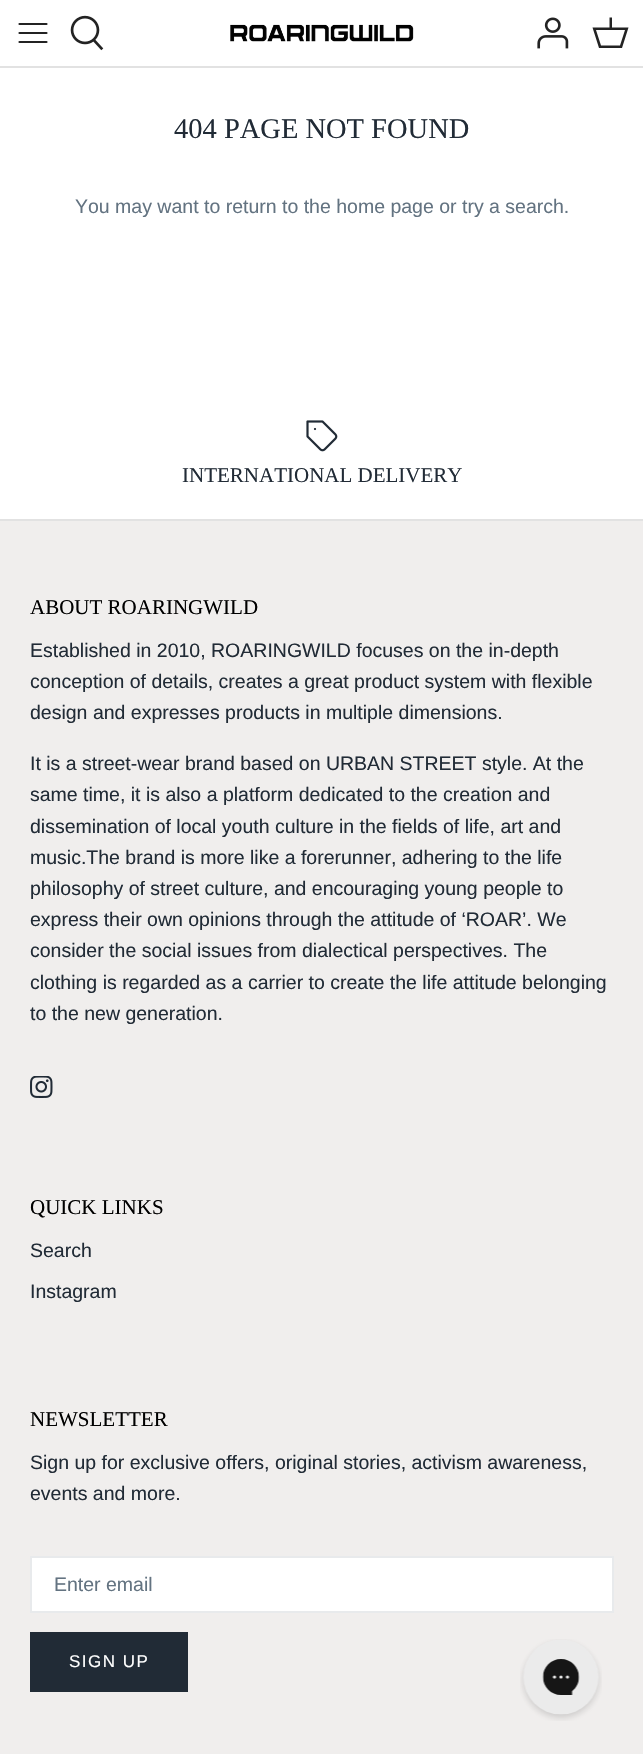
void draw(SkCanvas* canvas) {
    SkPaint paint;
    paint.setAntiAlias(true);
    auto spacedText = [&](const char* s, float x, float y, const SkFont& font, const SkPaint& ink, float letter, float word) {
        std::vector<SkGlyphID> glyphs(font.countText(s, strlen(s), SkTextEncoding::kUTF8));
        std::vector<float> xs(glyphs.size());
        font.textToGlyphs(s, strlen(s), SkTextEncoding::kUTF8, glyphs);
        font.getXPos(glyphs, xs, x);
        float extra = 0;
        for (size_t i = 0; i < glyphs.size(); i++) {
            xs[i] += extra;
            extra += letter + word * (glyphs[i] == font.unicharToGlyph(' '));
        }
        canvas->drawTextBlob(SkTextBlob::MakeFromPosHGlyphs(glyphs, xs, y, font), 0, 0, ink);
    };
    canvas->clear(0xFFFFFFFF);
    paint.setColor(0xFFE2E2E2);
    canvas->drawRect(SkRect::MakeXYWH(0, 66, 643, 2), paint);
    paint.setStyle(SkPaint::kStroke_Style);
    paint.setStrokeWidth(2.2f);
    paint.setStrokeCap(SkPaint::kRound_Cap);
    paint.setStrokeJoin(SkPaint::kRound_Join);
    paint.setColor(0xFF232323);
    canvas->drawPath(SkPathBuilder().moveTo(19.5f, 33).lineTo(46.5f, 33).moveTo(19.5f, 24).lineTo(46.5f, 24).moveTo(19.5f, 42).lineTo(46.5f, 42).detach(), paint);
    canvas->drawImageRect(SkImages::DeferredFromEncodedData(SkData::MakeFromFileName("img1.png")), SkRect::MakeXYWH(70, 15, 34, 36), SkSamplingOptions());
    canvas->drawImageRect(SkImages::DeferredFromEncodedData(SkData::MakeFromFileName("img2.png")), SkRect::MakeXYWH(230, 24, 184, 18), SkSamplingOptions());
    canvas->drawImageRect(SkImages::DeferredFromEncodedData(SkData::MakeFromFileName("img3.png")), SkRect::MakeXYWH(537, 17, 32, 32), SkSamplingOptions());
    paint.setStyle(SkPaint::kFill_Style);
    canvas->drawPath(SkPathBuilder().moveTo(609.5f, 27.5f).lineTo(609.5f, 17.5f).lineTo(612, 17.5f).lineTo(612, 27.5f).lineTo(628.5f, 27.5f).lineTo(622, 48).lineTo(599, 48).lineTo(592.5f, 27.5f).close().moveTo(596, 30).lineTo(601, 45.5f).lineTo(620, 45.5f).lineTo(625, 30).close().detach(), paint);
    SkFont font1(fontMgr->matchFamilyStyle("Liberation Serif", SkFontStyle::Normal()), 28.5f);
    font1.setSubpixel(true);
    paint.setColor(0xFF212B36);
    canvas->drawString("404 PAGE NOT FOUND", 174, 138, font1, paint);
    SkFont font2(fontMgr->matchFamilyStyle("Liberation Sans", SkFontStyle::Normal()), 19.5f);
    font2.setSubpixel(true);
    paint.setColor(0xFF637381);
    canvas->drawString("You may want to return to the home page or try a search.", 75, 213, font2, paint);
    paint.setColor(0xFFF0EEED);
    canvas->drawRect(SkRect::MakeXYWH(0, 521, 643, 1233), paint);
    canvas->drawImageRect(SkImages::DeferredFromEncodedData(SkData::MakeFromFileName("img4.png")), SkRect::MakeXYWH(306, 420, 32, 32), SkSamplingOptions());
    SkFont font3(fontMgr->matchFamilyStyle("Liberation Serif", SkFontStyle::Normal()), 21);
    font3.setSubpixel(true);
    paint.setColor(0xFF212B36);
    canvas->drawString("INTERNATIONAL DELIVERY", 182, 482, font3, paint);
    paint.setColor(0xFFE2E2E2);
    canvas->drawRect(SkRect::MakeXYWH(0, 519, 643, 2), paint);
    paint.setColor(0xFF000000);
    canvas->drawString("ABOUT ROARINGWILD", 30, 614, font3, paint);
    paint.setColor(0xFF212B36);
    canvas->drawString("Established in 2010, ROARINGWILD focuses on the in-depth", 30, 657, font2, paint);
    canvas->drawString("conception of details, creates a great product system with flexible", 30, 688, font2, paint);
    canvas->drawString("design and expresses products in multiple dimensions.", 30, 719, font2, paint);
    canvas->drawString("It is a street-wear brand based on URBAN STREET style. At the", 30, 770, font2, paint);
    canvas->drawString("same time, it is also a platform dedicated to the creation and", 30, 801, font2, paint);
    canvas->drawString("dissemination of local youth culture in the fields of life, art and", 30, 833, font2, paint);
    canvas->drawString("music.The brand is more like a forerunner, adhering to the life", 30, 864, font2, paint);
    canvas->drawString("philosophy of street culture, and encouraging young people to", 30, 895, font2, paint);
    canvas->drawString("express their own opinions through the attitude of ‘ROAR’. We", 30, 926, font2, paint);
    canvas->drawString("consider the social issues from dialectical perspectives. The", 30, 957, font2, paint);
    canvas->drawString("clothing is regarded as a carrier to create the life attitude belonging", 30, 989, font2, paint);
    canvas->drawString("to the new generation.", 30, 1020, font2, paint);
    canvas->drawImageRect(SkImages::DeferredFromEncodedData(SkData::MakeFromFileName("img5.png")), SkRect::MakeXYWH(30, 1076, 23, 22), SkSamplingOptions());
    paint.setColor(0xFF000000);
    canvas->drawString("QUICK LINKS", 30, 1214, font3, paint);
    paint.setColor(0xFF212B36);
    canvas->drawString("Search", 30, 1257, font2, paint);
    canvas->drawString("Instagram", 30, 1298, font2, paint);
    paint.setColor(0xFF000000);
    canvas->drawString("NEWSLETTER", 30, 1426, font3, paint);
    paint.setColor(0xFF212B36);
    canvas->drawString("Sign up for exclusive offers, original stories, activism awareness,", 30, 1469, font2, paint);
    canvas->drawString("events and more.", 30, 1500, font2, paint);
    paint.setColor(0xFFFFFFFF);
    canvas->drawRect(SkRect::MakeXYWH(31, 1557, 582, 55), paint);
    paint.setStyle(SkPaint::kStroke_Style);
    paint.setStrokeWidth(2);
    paint.setStrokeCap(SkPaint::kButt_Cap);
    paint.setStrokeJoin(SkPaint::kMiter_Join);
    paint.setColor(0xFFE8EAEC);
    canvas->drawRect(SkRect::MakeXYWH(31, 1557, 582, 55), paint);
    paint.setStyle(SkPaint::kFill_Style);
    paint.setColor(0xFF637381);
    canvas->drawString("Enter email", 54, 1591, font2, paint);
    paint.setColor(0xFF212B36);
    canvas->drawRect(SkRect::MakeXYWH(30, 1632, 158, 60), paint);
    SkFont font4(fontMgr->matchFamilyStyle("Liberation Sans", SkFontStyle::Normal()), 17);
    font4.setSubpixel(true);
    paint.setColor(0xFFFFFFFF);
    spacedText("SIGN UP", 69, 1667, font4, paint, 1.5f, 0);
    canvas->drawImageRect(SkImages::DeferredFromEncodedData(SkData::MakeFromFileName("img6.png")), SkRect::MakeXYWH(520, 1639, 82, 82), SkSamplingOptions());
}
